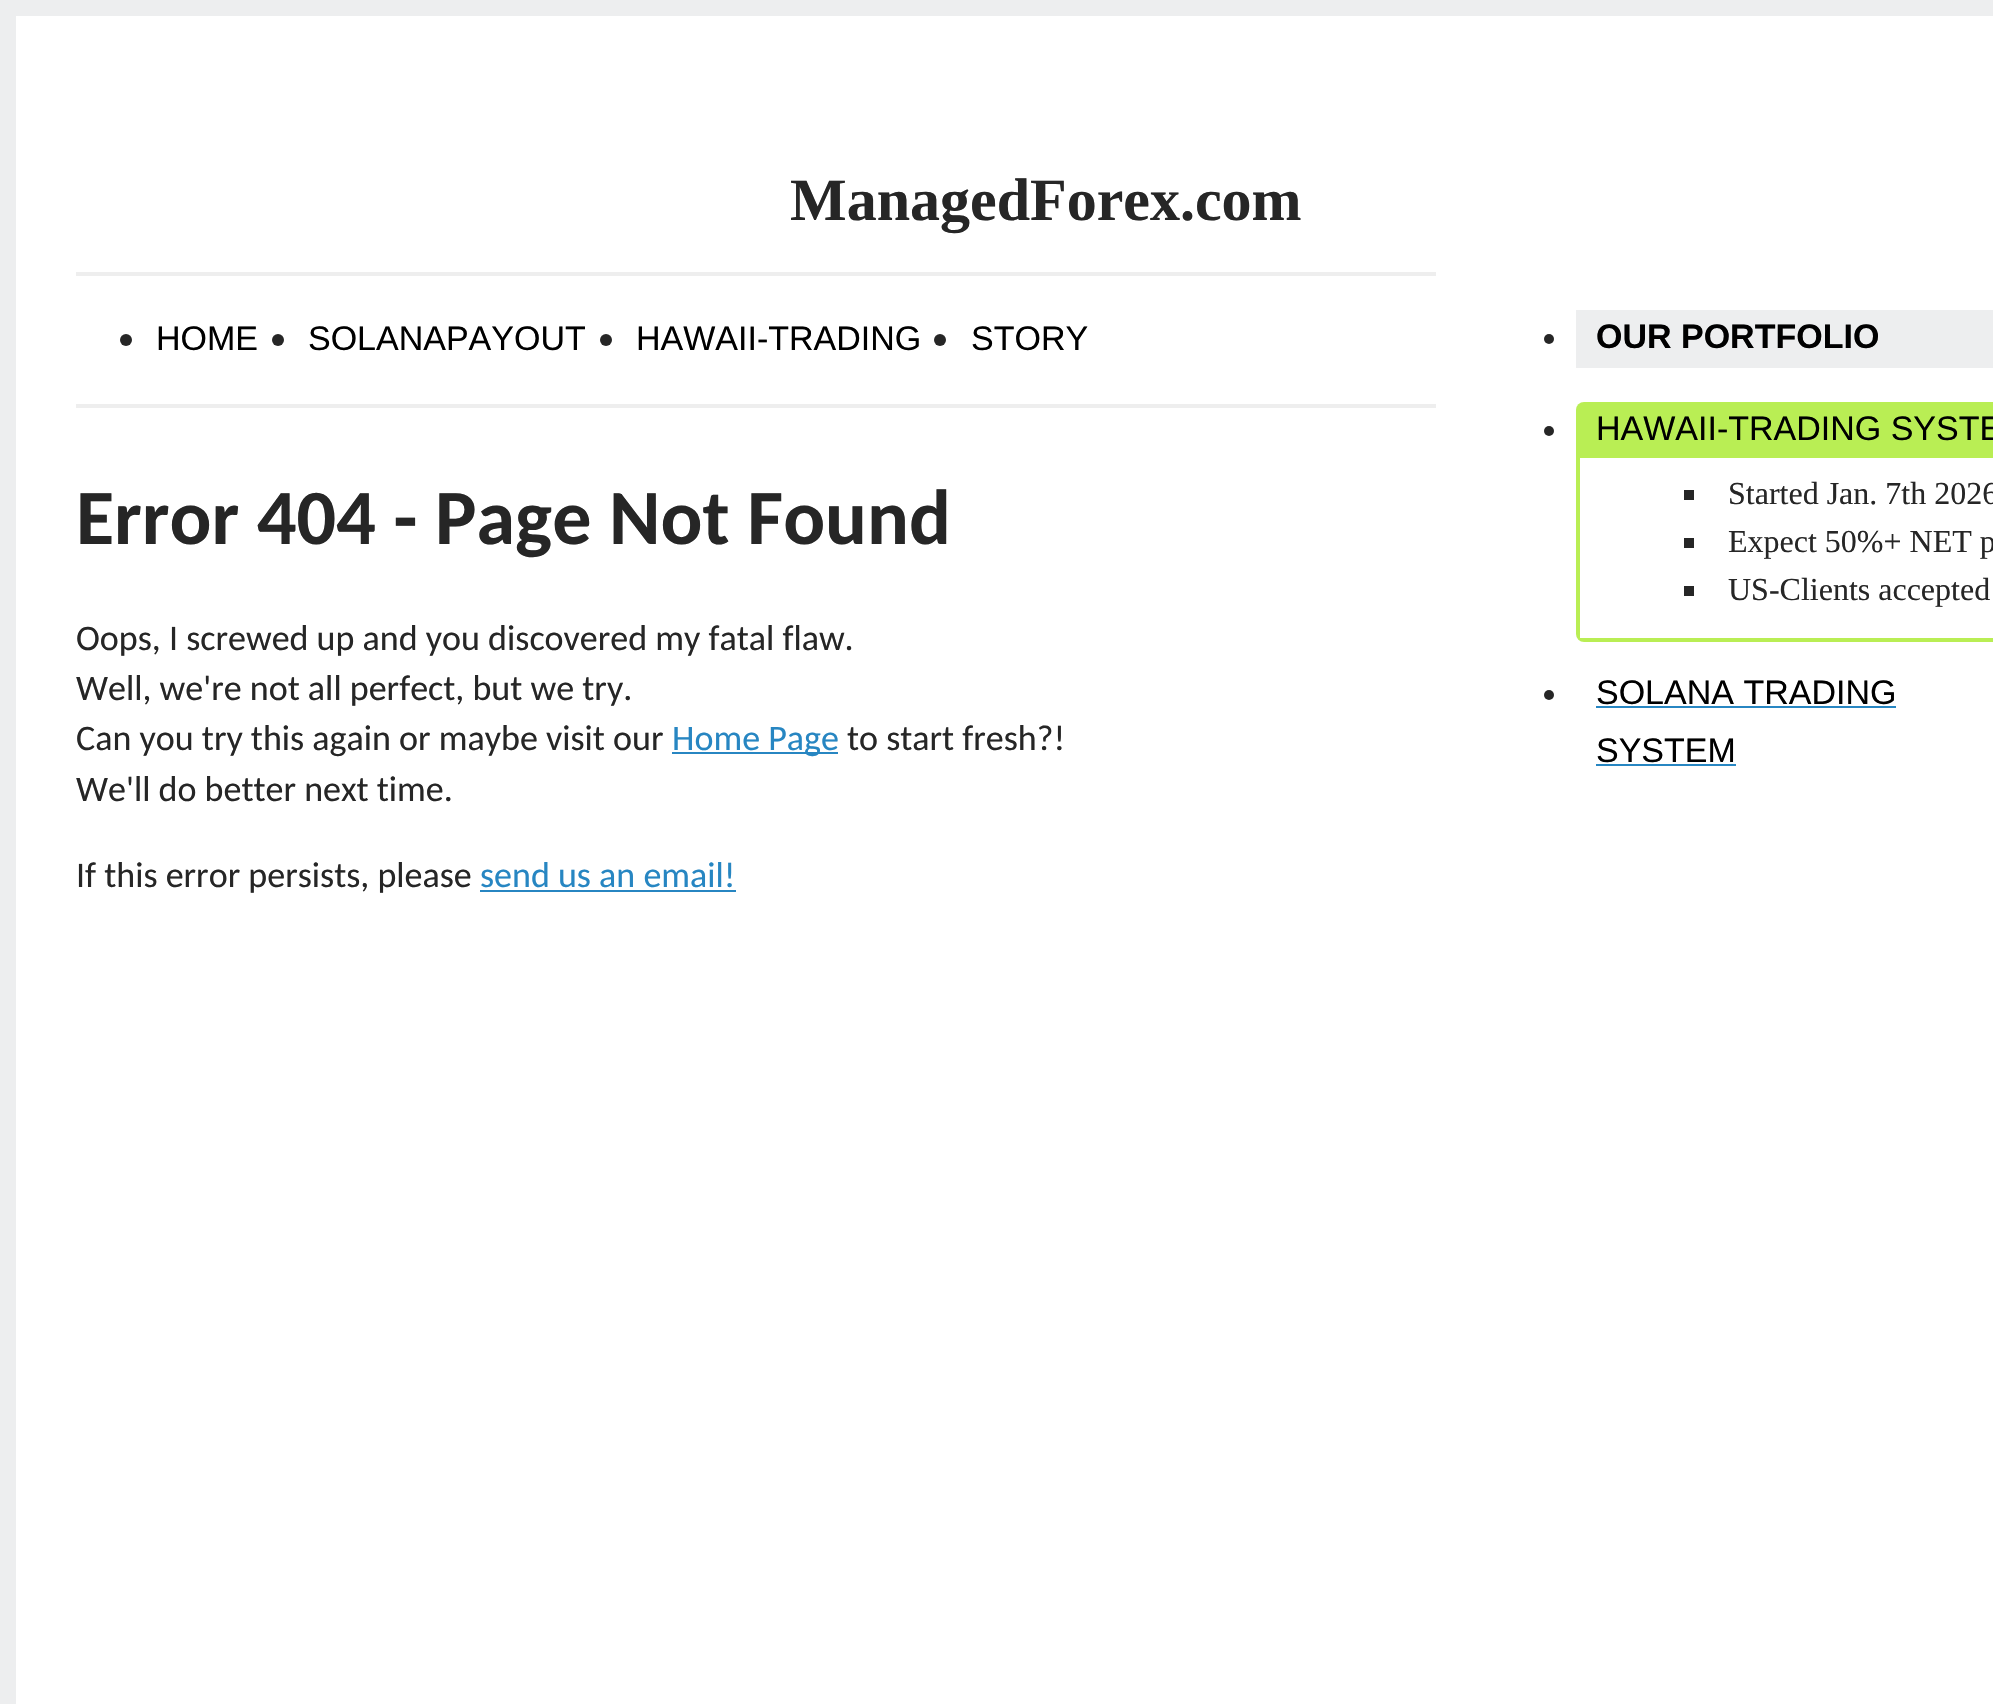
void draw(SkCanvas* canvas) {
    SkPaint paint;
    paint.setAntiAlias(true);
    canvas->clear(0xFFEDEEEF);
    paint.setColor(0xFFFFFFFF);
    canvas->drawRect(SkRect::MakeXYWH(16, 16, 1977, 1688), paint);
    SkFont font1(fontMgr->matchFamilyStyle("Liberation Serif", SkFontStyle::Bold()), 60);
    font1.setSubpixel(true);
    paint.setColor(0xFF262626);
    canvas->drawString("ManagedForex.com", 790, 220, font1, paint);
    paint.setColor(0xFFEEEEEE);
    canvas->drawRect(SkRect::MakeXYWH(76, 272, 1360, 4), paint);
    canvas->drawRect(SkRect::MakeXYWH(76, 404, 1360, 4), paint);
    paint.setColor(0xFF262626);
    canvas->drawCircle(126, 340, 6, paint);
    SkFont font2(fontMgr->matchFamilyStyle("Liberation Sans", SkFontStyle::Normal()), 34);
    font2.setSubpixel(true);
    paint.setColor(0xFF000000);
    canvas->drawString("HOME", 156, 350, font2, paint);
    paint.setColor(0xFF262626);
    canvas->drawCircle(278, 340, 6, paint);
    paint.setColor(0xFF000000);
    canvas->drawString("SOLANAPAYOUT", 308, 350, font2, paint);
    paint.setColor(0xFF262626);
    canvas->drawCircle(606, 340, 6, paint);
    paint.setColor(0xFF000000);
    canvas->drawString("HAWAII-TRADING", 636, 350, font2, paint);
    paint.setColor(0xFF262626);
    canvas->drawCircle(940, 340, 6, paint);
    paint.setColor(0xFF000000);
    canvas->drawString("STORY", 971, 350, font2, paint);
    SkFont font3(fontMgr->matchFamilyStyle("Carlito", SkFontStyle::Bold()), 78.1f);
    font3.setSubpixel(true);
    paint.setColor(0xFF262626);
    canvas->drawString("Error 404 - Page Not Found", 76, 544, font3, paint);
    SkFont font4(fontMgr->matchFamilyStyle("Carlito", SkFontStyle::Normal()), 36);
    font4.setSubpixel(true);
    canvas->drawString("Oops, I screwed up and you discovered my fatal flaw.", 76, 650, font4, paint);
    canvas->drawString("Well, we're not all perfect, but we try.", 76, 700, font4, paint);
    canvas->drawString("Can you try this again or maybe visit our", 76, 750, font4, paint);
    paint.setColor(0xFF2786C2);
    canvas->drawRect(SkRect::MakeXYWH(672, 752, 166, 2), paint);
    canvas->drawString("Home Page", 672, 750, font4, paint);
    paint.setColor(0xFF262626);
    canvas->drawString("to start fresh?!", 847, 750, font4, paint);
    canvas->drawString("We'll do better next time.", 76, 801, font4, paint);
    canvas->drawString("If this error persists, please", 76, 887, font4, paint);
    paint.setColor(0xFF2786C2);
    canvas->drawString("send us an email!", 480, 887, font4, paint);
    canvas->drawRect(SkRect::MakeXYWH(480, 890, 256, 2), paint);
    paint.setColor(0xFF262626);
    canvas->drawCircle(1549, 339, 5, paint);
    paint.setColor(0xFFEDEEEF);
    canvas->drawRect(SkRect::MakeXYWH(1576, 310, 417, 58), paint);
    SkFont font5(fontMgr->matchFamilyStyle("Liberation Sans", SkFontStyle::Bold()), 34);
    font5.setSubpixel(true);
    paint.setColor(0xFF000000);
    canvas->drawString("OUR PORTFOLIO", 1596, 348, font5, paint);
    paint.setColor(0xFF262626);
    canvas->drawCircle(1549, 431, 5, paint);
    paint.setColor(0xFFB9EE54);
    canvas->drawRoundRect(SkRect::MakeXYWH(1576, 402, 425, 240), 8, 8, paint);
    paint.setColor(0xFF000000);
    canvas->drawString("HAWAII-TRADING SYSTE", 1596, 440, font2, paint);
    paint.setColor(0xFFFFFFFF);
    canvas->drawRect(SkRect::MakeXYWH(1580, 458, 413, 180), paint);
    paint.setColor(0xFF262626);
    canvas->drawRect(SkRect::MakeXYWH(1684, 490, 10, 10), paint);
    SkFont font6(fontMgr->matchFamilyStyle("Liberation Serif", SkFontStyle::Normal()), 32);
    font6.setSubpixel(true);
    canvas->drawString("Started Jan. 7th 2026", 1728, 504, font6, paint);
    canvas->drawRect(SkRect::MakeXYWH(1684, 538, 10, 10), paint);
    canvas->drawString("Expect 50%+ NET p", 1728, 552, font6, paint);
    canvas->drawRect(SkRect::MakeXYWH(1684, 586, 10, 10), paint);
    canvas->drawString("US-Clients accepted", 1728, 600, font6, paint);
    canvas->drawCircle(1549, 695, 5, paint);
    paint.setColor(0xFF000000);
    canvas->drawString("SOLANA TRADING", 1596, 704, font2, paint);
    paint.setColor(0xFF2786C2);
    canvas->drawRect(SkRect::MakeXYWH(1596, 706, 300, 2), paint);
    paint.setColor(0xFF000000);
    canvas->drawString("SYSTEM", 1596, 762, font2, paint);
    paint.setColor(0xFF2786C2);
    canvas->drawRect(SkRect::MakeXYWH(1596, 764, 140, 2), paint);
}
